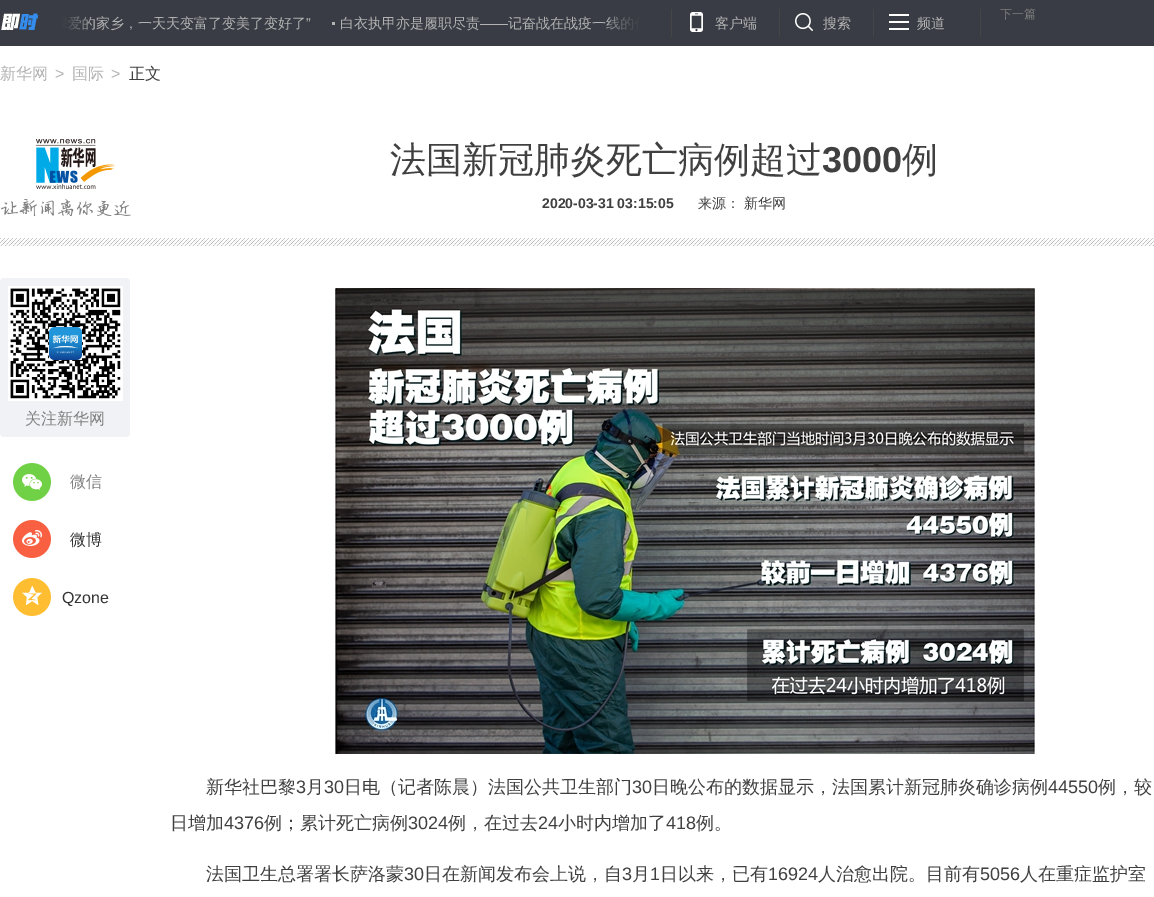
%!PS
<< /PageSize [1154 897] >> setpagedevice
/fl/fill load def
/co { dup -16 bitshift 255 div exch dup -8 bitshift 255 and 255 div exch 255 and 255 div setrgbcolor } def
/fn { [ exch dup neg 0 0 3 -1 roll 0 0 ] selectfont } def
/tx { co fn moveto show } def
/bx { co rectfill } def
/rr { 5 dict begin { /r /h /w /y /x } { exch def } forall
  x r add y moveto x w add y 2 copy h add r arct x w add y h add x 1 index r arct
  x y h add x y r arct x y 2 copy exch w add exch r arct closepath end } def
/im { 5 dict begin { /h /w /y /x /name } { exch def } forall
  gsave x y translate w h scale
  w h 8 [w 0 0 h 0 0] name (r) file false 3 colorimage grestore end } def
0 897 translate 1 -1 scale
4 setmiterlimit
0 0 1154 897 16#FFFFFF bx
0 0 1154 46 16#393C44 bx
(media/1.raw) 1 13 38 17 im
332 22 3 3 16#B3B3B3 bx
671 9 1 28 16#464646 bx
(media/4.raw) 690 12 13 20 im
779 9 1 28 16#464646 bx
(media/5.raw) 795 13 18 18 im
873 9 1 28 16#464646 bx
(media/6.raw) 889 14 20 16 im
980 9 1 28 16#464646 bx
(media/7.raw) 0 238 1154 8 im
(media/8.raw) 1 139 130 77 im
16#F0F2F5 co
0 278 130 159 4 rr fl
(media/9.raw) 8 286 115 115 im
(media/10.raw) 13 463 38 38 im
(media/11.raw) 13 520 38 38 im
(media/12.raw) 13 578 38 38 im
(media/13.raw) 335 288 700 466 im
(爱的家乡，一天天变富了变美了变好了) 68 28 /WenQuanYiZenHei-Medium 14 16#B3B3B3 tx
(media/2.raw) 40 16 54 14 im
(”) 306 28 /LiberationSans-Regular 14 16#B3B3B3 tx
(白衣执甲亦是履职尽责) 340 28 /WenQuanYiZenHei-Medium 14 16#B3B3B3 tx
(——) 480 28 /LiberationSans-Regular 14 16#B3B3B3 tx
(记奋战在战疫一线的) 508 28 /WenQuanYiZenHei-Medium 14 16#B3B3B3 tx
(media/3.raw) 609 16 61 15 im
(客户端) 715 28 /WenQuanYiZenHei-Medium 14 16#B3B3B3 tx
(搜索) 823 28 /WenQuanYiZenHei-Medium 14 16#B3B3B3 tx
(频道) 917 28 /WenQuanYiZenHei-Medium 14 16#B3B3B3 tx
(下一篇) 1000 18 /WenQuanYiZenHei-Medium 12 16#808080 tx
(新华网) 0 79 /WenQuanYiZenHei-Medium 16 16#B3B3B3 tx
(>) 55 79 /LiberationSans-Regular 16 16#B3B3B3 tx
(国际) 72 79 /WenQuanYiZenHei-Medium 16 16#B3B3B3 tx
(>) 111 79 /LiberationSans-Regular 16 16#B3B3B3 tx
(正文) 129 79 /WenQuanYiZenHei-Medium 16 16#404040 tx
(法国新冠肺炎死亡病例超过) 390 172 /WenQuanYiZenHei-Medium 36 16#404040 tx
(3000) 822 172 /LiberationSans-Bold 36 16#404040 tx
(例) 902 172 /WenQuanYiZenHei-Medium 36 16#404040 tx
(2020-03-31 03:15:05) 542 208 /LiberationSans-Bold 14 16#404040 tx
(来源：) 698 208 /WenQuanYiZenHei-Medium 14 16#404040 tx
(新华网) 744 208 /WenQuanYiZenHei-Medium 14 16#404040 tx
(关注新华网) 25 424 /WenQuanYiZenHei-Medium 16 16#808080 tx
(微信) 70 487 /WenQuanYiZenHei-Medium 16 16#808080 tx
(微博) 70 545 /WenQuanYiZenHei-Medium 16 16#333333 tx
(Qzone) 62 603 /LiberationSans-Regular 16 16#333333 tx
(新华社巴黎) 206 793 /WenQuanYiZenHei-Medium 18 16#404040 tx
(3) 296 793 /LiberationSans-Regular 18 16#404040 tx
(月) 306 793 /WenQuanYiZenHei-Medium 18 16#404040 tx
(30) 324 793 /LiberationSans-Regular 18 16#404040 tx
(日电（记者陈晨）法国公共卫生部门) 344 793 /WenQuanYiZenHei-Medium 18 16#404040 tx
(30) 632 793 /LiberationSans-Regular 18 16#404040 tx
(日晚公布的数据显示，法国累计新冠肺炎确诊病例) 652 793 /WenQuanYiZenHei-Medium 18 16#404040 tx
(44550) 1048 793 /LiberationSans-Regular 18 16#404040 tx
(例，较) 1098 793 /WenQuanYiZenHei-Medium 18 16#404040 tx
(日增加) 170 829 /WenQuanYiZenHei-Medium 18 16#404040 tx
(4376) 224 829 /LiberationSans-Regular 18 16#404040 tx
(例；累计死亡病例) 264 829 /WenQuanYiZenHei-Medium 18 16#404040 tx
(3024) 408 829 /LiberationSans-Regular 18 16#404040 tx
(例，在过去) 448 829 /WenQuanYiZenHei-Medium 18 16#404040 tx
(24) 538 829 /LiberationSans-Regular 18 16#404040 tx
(小时内增加了) 558 829 /WenQuanYiZenHei-Medium 18 16#404040 tx
(418) 666 829 /LiberationSans-Regular 18 16#404040 tx
(例。) 696 829 /WenQuanYiZenHei-Medium 18 16#404040 tx
(法国卫生总署署长萨洛蒙) 206 880 /WenQuanYiZenHei-Medium 18 16#404040 tx
(30) 404 880 /LiberationSans-Regular 18 16#404040 tx
(日在新闻发布会上说，自) 424 880 /WenQuanYiZenHei-Medium 18 16#404040 tx
(3) 622 880 /LiberationSans-Regular 18 16#404040 tx
(月) 632 880 /WenQuanYiZenHei-Medium 18 16#404040 tx
(1) 650 880 /LiberationSans-Regular 18 16#404040 tx
(日以来，已有) 660 880 /WenQuanYiZenHei-Medium 18 16#404040 tx
(16924) 768 880 /LiberationSans-Regular 18 16#404040 tx
(人治愈出院。目前有) 818 880 /WenQuanYiZenHei-Medium 18 16#404040 tx
(5056) 980 880 /LiberationSans-Regular 18 16#404040 tx
(人在重症监护室) 1020 880 /WenQuanYiZenHei-Medium 18 16#404040 tx
showpage
